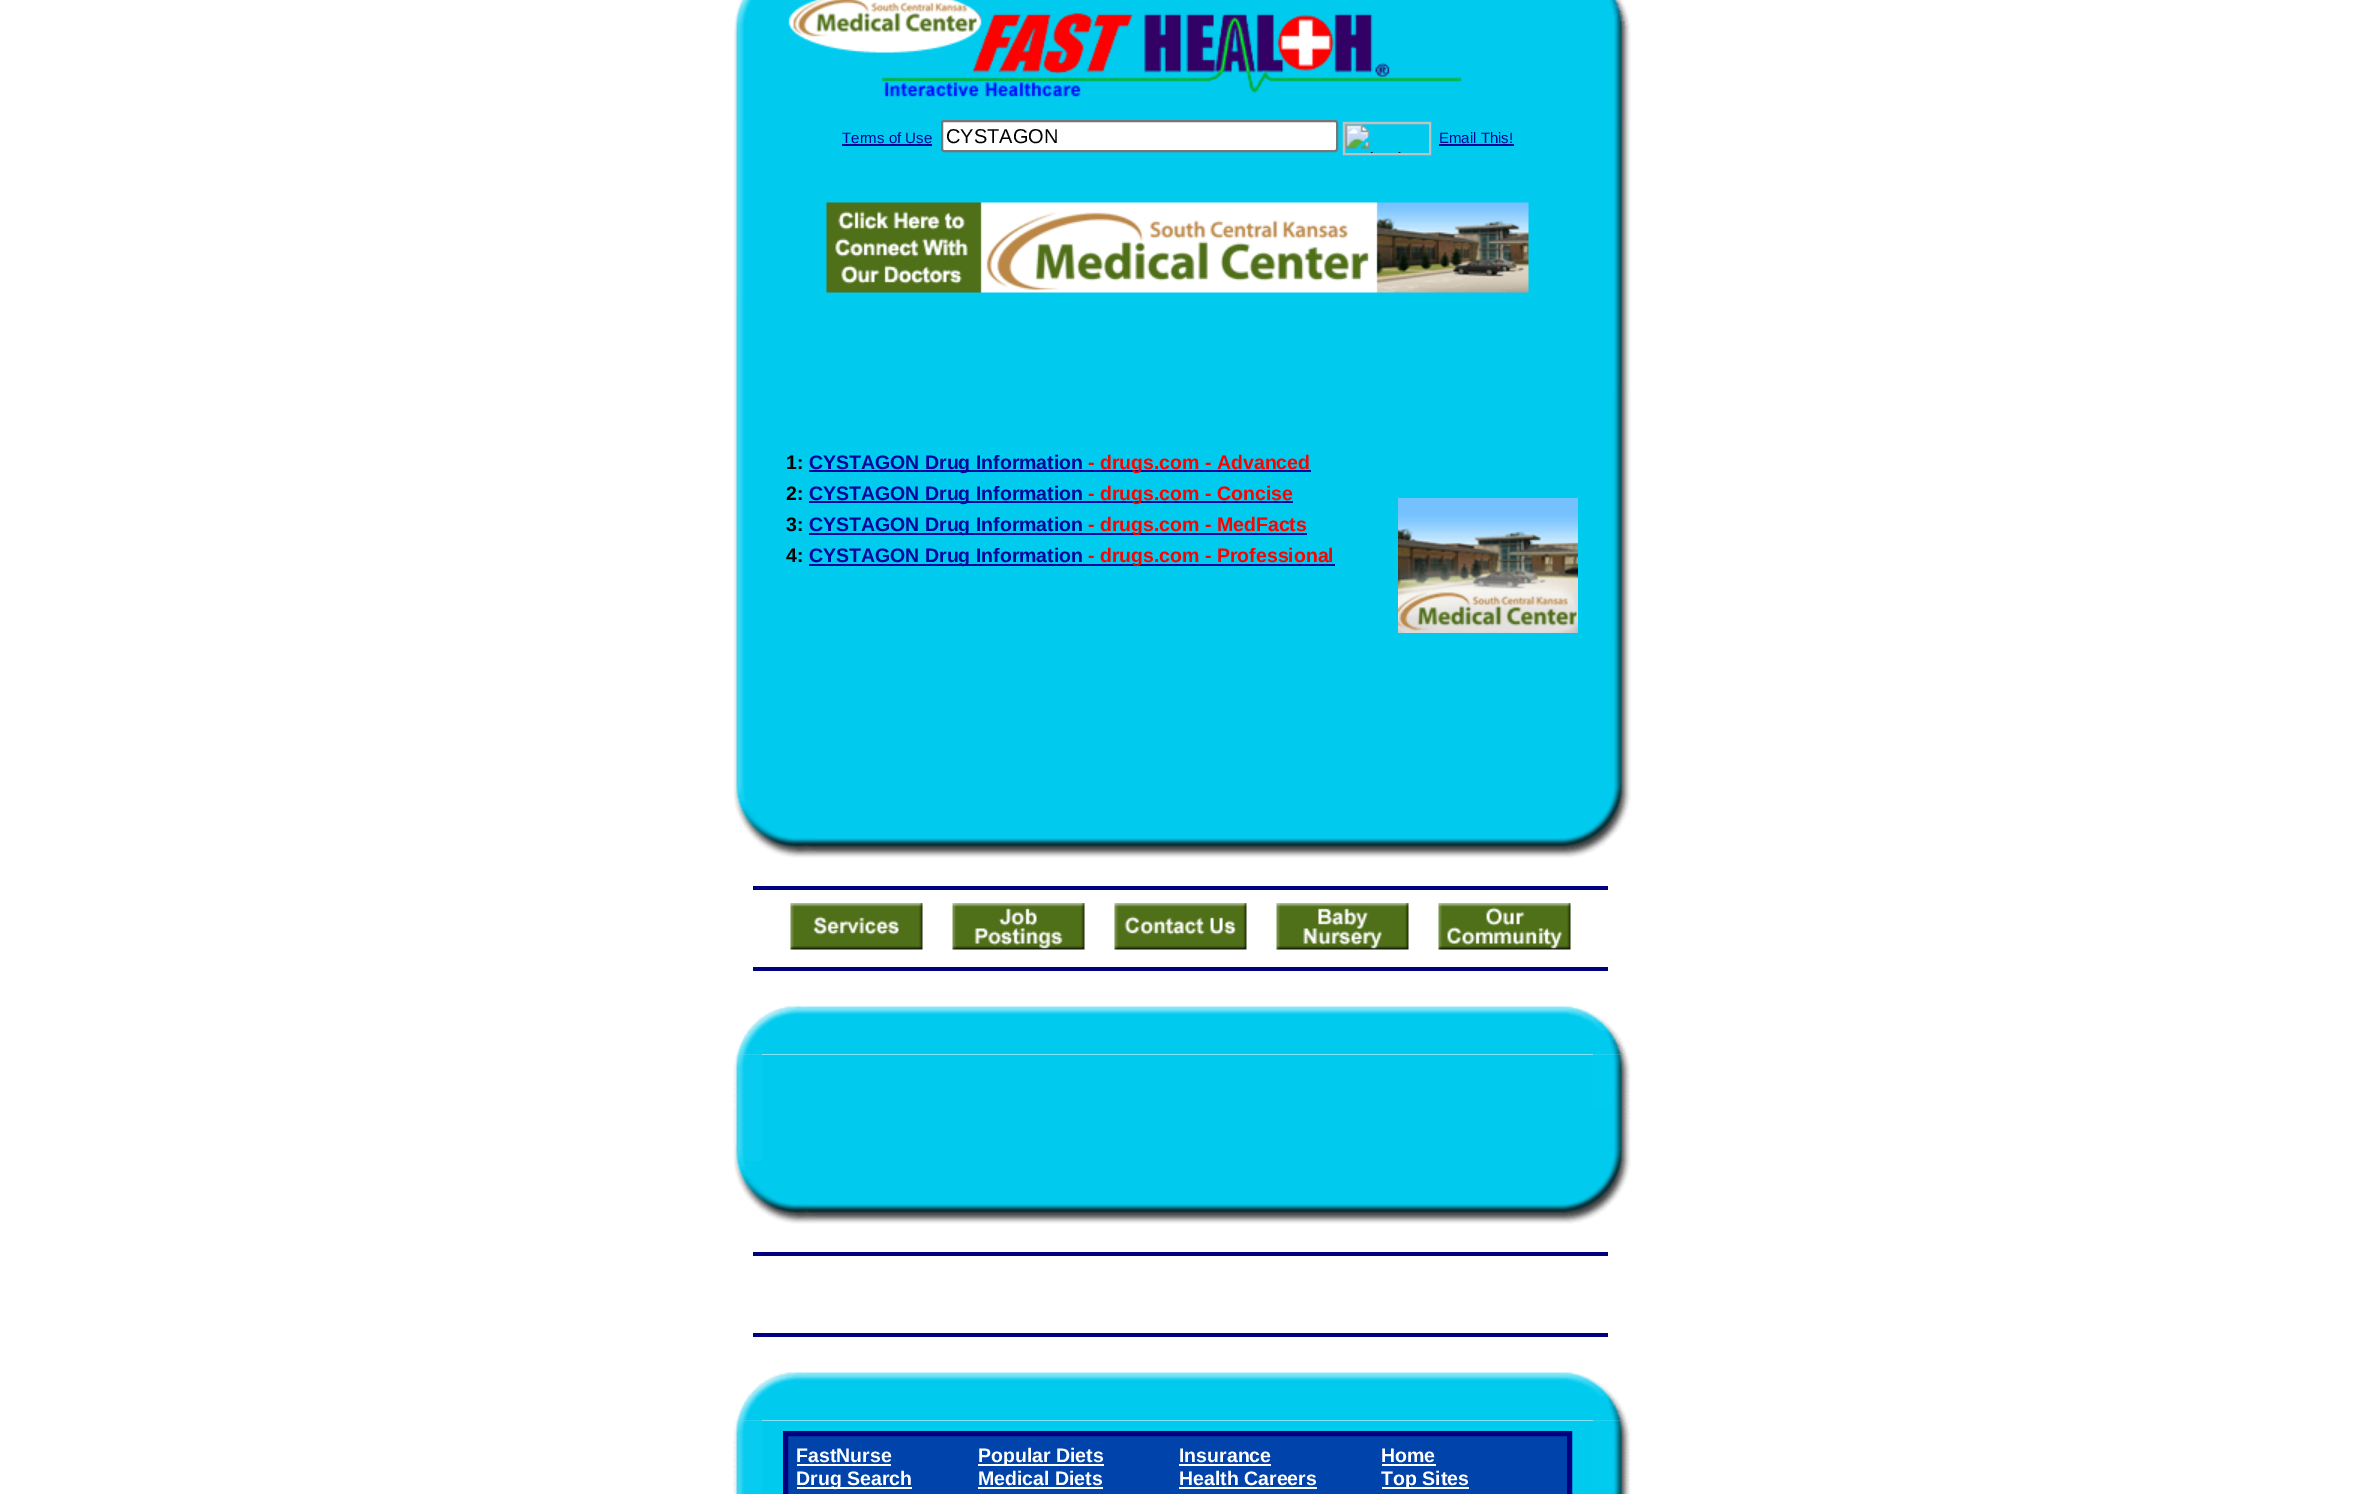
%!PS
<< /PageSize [2361 1494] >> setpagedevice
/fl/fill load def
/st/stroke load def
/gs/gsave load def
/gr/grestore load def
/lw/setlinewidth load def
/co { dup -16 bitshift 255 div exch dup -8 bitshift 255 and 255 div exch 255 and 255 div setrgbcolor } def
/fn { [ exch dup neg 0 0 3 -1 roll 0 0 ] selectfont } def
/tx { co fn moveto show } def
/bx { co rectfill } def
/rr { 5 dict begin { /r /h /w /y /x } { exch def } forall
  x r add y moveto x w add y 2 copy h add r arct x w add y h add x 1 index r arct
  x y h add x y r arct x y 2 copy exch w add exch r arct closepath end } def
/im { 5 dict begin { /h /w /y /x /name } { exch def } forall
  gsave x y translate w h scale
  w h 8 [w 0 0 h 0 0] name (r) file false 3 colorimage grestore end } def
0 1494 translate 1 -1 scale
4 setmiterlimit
0 0 2361 1494 16#FFFFFF bx
(media/1.raw) 734 0 897 120 im
(media/2.raw) 733 120 29 270 im
736 120 1 174 16#9CE0EC bx
762 120 831 675 16#00CBEF bx
842 144 90 2 16#00079D bx
16#FFFFFF co
942 121 395 30 2 rr gs fl gr
16#767676 co
2 lw
st
(media/3.raw) 1342 121 89 34 im
16#C0C0C0 co
1344 123 86 31 rectstroke
1439 144 75 2 16#00079D bx
(media/4.raw) 826 202 703 91 im
809 470 502 2 16#00079D bx
809 501 484 2 16#00079D bx
809 533 498 2 16#00079D bx
809 564 526 2 16#00079D bx
(media/5.raw) 1398 498 180 135 im
(media/6.raw) 1593 120 38 270 im
(media/7.raw) 733 390 29 405 im
(media/8.raw) 736 534 6 261 im
(media/9.raw) 1593 390 38 405 im
(media/10.raw) 1613 641 9 154 im
(media/11.raw) 734 795 897 63 im
753 886 855 4 16#000080 bx
(media/12.raw) 790 903 133 47 im
(media/13.raw) 952 903 133 47 im
(media/14.raw) 1114 903 133 47 im
(media/15.raw) 1276 903 133 47 im
(media/16.raw) 1438 903 133 47 im
753 967 855 4 16#000080 bx
(media/18.raw) 733 1054 29 1 im
(media/20.raw) 1593 1054 38 1 im
(media/17.raw) 735 1006 894 49 im
(media/19.raw) 733 1054 29 53 im
762 1055 831 106 16#00CBEF bx
(media/21.raw) 1593 1054 38 53 im
(media/22.raw) 733 1107 1 54 im
(media/23.raw) 734 1107 28 54 im
(media/24.raw) 1593 1107 38 54 im
(media/25.raw) 1613 1107 16 54 im
(media/11.raw) 734 1161 897 63 im
753 1252 855 4 16#000080 bx
753 1333 855 4 16#000080 bx
(media/18.raw) 733 1420 29 1 im
(media/20.raw) 1593 1420 38 1 im
(media/17.raw) 735 1372 894 49 im
(media/26.raw) 733 1420 29 68 im
762 1421 831 73 16#00CBEF bx
788 1436 779 58 16#0043AA bx
16#000080 co
3 lw
784.5 1432.5 786 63 rectstroke
2 lw
787 1435 781 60 rectstroke
797 1464 94 2 16#FFFFFF bx
797 1487 115 2 16#FFFFFF bx
978 1464 126 2 16#FFFFFF bx
978 1487 125 2 16#FFFFFF bx
1179 1464 92 2 16#FFFFFF bx
1179 1487 138 2 16#FFFFFF bx
1382 1464 54 2 16#FFFFFF bx
1382 1487 87 2 16#FFFFFF bx
(media/27.raw) 1593 1420 38 68 im
(media/28.raw) 733 1488 1 6 im
(media/29.raw) 734 1488 28 6 im
(media/30.raw) 1593 1488 38 6 im
(media/31.raw) 1625 1488 4 3 im
(Terms of Use) 842 143 /LiberationSans-Regular 15 16#00079D tx
(CYSTAGON) 946 143 /LiberationSans-Regular 20 16#000000 tx
(Email This!) 1439 143 /LiberationSans-Regular 15 16#00079D tx
(1:) 786 469 /LiberationSans-Bold 19.5 16#000000 tx
(CYSTAGON Drug Information) 809 469 /LiberationSans-Bold 19.5 16#00079D tx
(- drugs.com - Advanced) 1088 469 /LiberationSans-Bold 19.5 16#FF0000 tx
(2:) 786 500 /LiberationSans-Bold 19.5 16#000000 tx
(CYSTAGON Drug Information) 809 500 /LiberationSans-Bold 19.5 16#00079D tx
(- drugs.com - Concise) 1088 500 /LiberationSans-Bold 19.5 16#FF0000 tx
(3:) 786 531 /LiberationSans-Bold 19.5 16#000000 tx
(CYSTAGON Drug Information) 809 531 /LiberationSans-Bold 19.5 16#00079D tx
(- drugs.com - MedFacts) 1088 531 /LiberationSans-Bold 19.5 16#FF0000 tx
(4:) 786 562 /LiberationSans-Bold 19.5 16#000000 tx
(CYSTAGON Drug Information) 809 562 /LiberationSans-Bold 19.5 16#00079D tx
(- drugs.com - Professional) 1088 562 /LiberationSans-Bold 19.5 16#FF0000 tx
(FastNurse) 796 1462 /LiberationSans-Bold 19.5 16#FFFFFF tx
(Drug Search) 796 1485 /LiberationSans-Bold 19.5 16#FFFFFF tx
(Popular Diets) 978 1462 /LiberationSans-Bold 19.5 16#FFFFFF tx
(Medical Diets) 978 1485 /LiberationSans-Bold 19.5 16#FFFFFF tx
(Insurance) 1179 1462 /LiberationSans-Bold 19.5 16#FFFFFF tx
(Health Careers) 1179 1485 /LiberationSans-Bold 19.5 16#FFFFFF tx
(Home) 1381 1462 /LiberationSans-Bold 19.5 16#FFFFFF tx
(Top Sites) 1381 1485 /LiberationSans-Bold 19.5 16#FFFFFF tx
showpage
